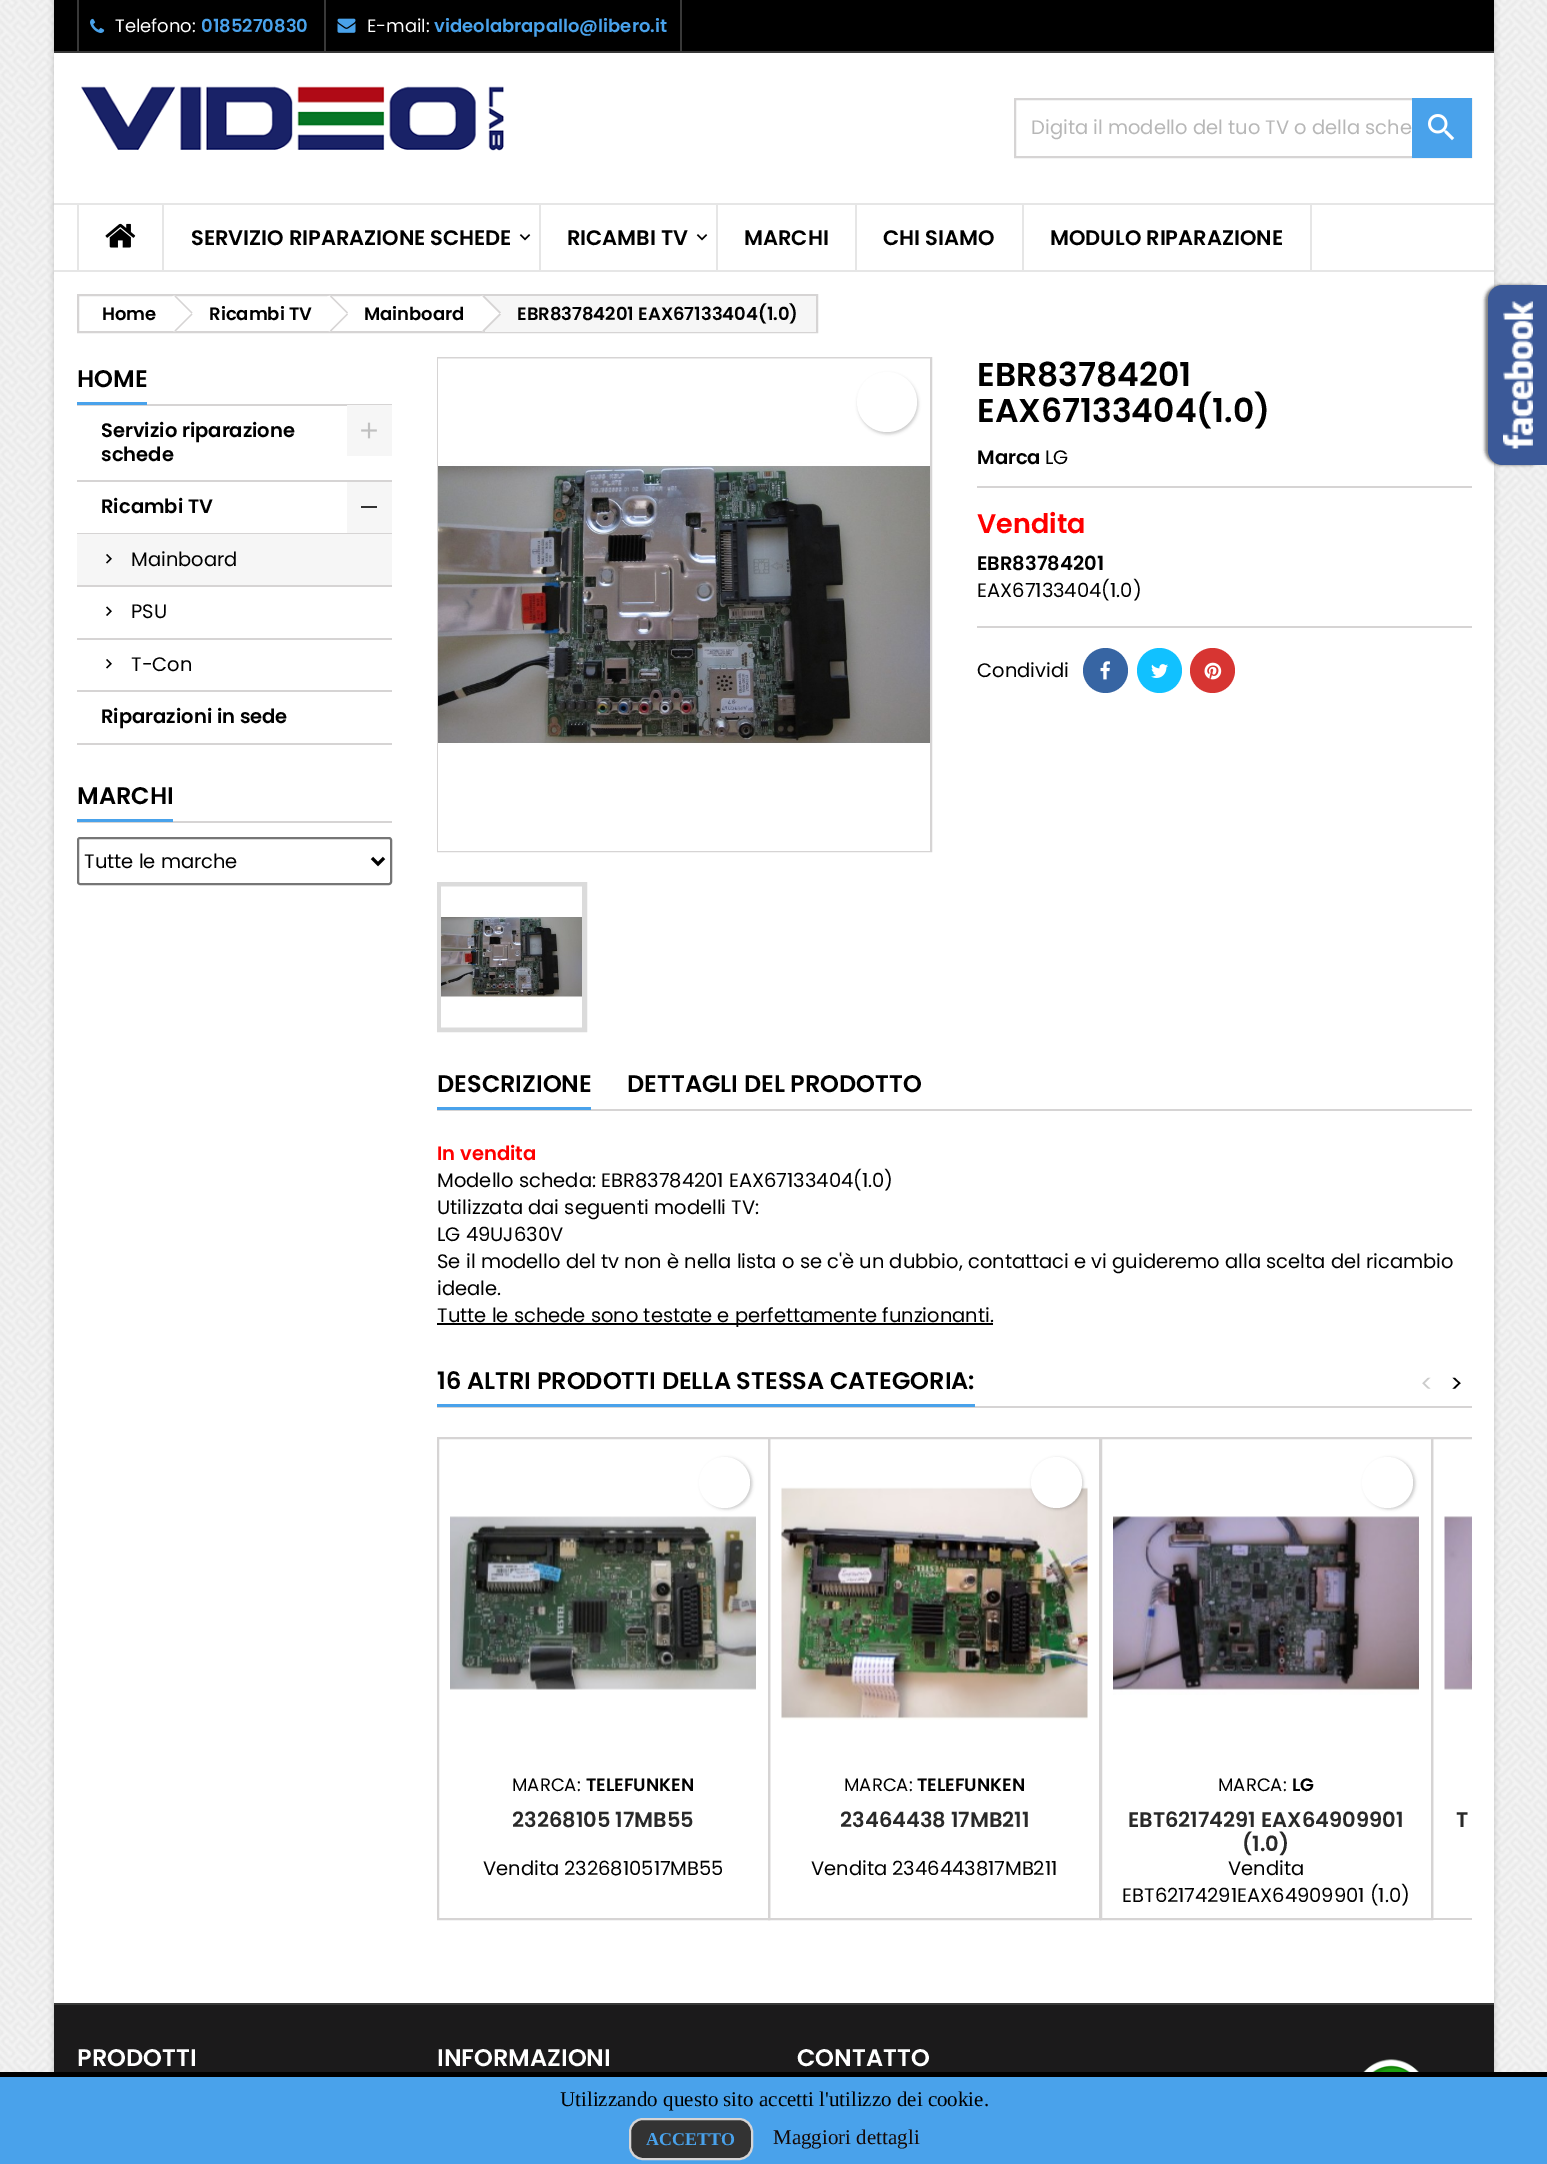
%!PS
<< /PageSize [1547 2164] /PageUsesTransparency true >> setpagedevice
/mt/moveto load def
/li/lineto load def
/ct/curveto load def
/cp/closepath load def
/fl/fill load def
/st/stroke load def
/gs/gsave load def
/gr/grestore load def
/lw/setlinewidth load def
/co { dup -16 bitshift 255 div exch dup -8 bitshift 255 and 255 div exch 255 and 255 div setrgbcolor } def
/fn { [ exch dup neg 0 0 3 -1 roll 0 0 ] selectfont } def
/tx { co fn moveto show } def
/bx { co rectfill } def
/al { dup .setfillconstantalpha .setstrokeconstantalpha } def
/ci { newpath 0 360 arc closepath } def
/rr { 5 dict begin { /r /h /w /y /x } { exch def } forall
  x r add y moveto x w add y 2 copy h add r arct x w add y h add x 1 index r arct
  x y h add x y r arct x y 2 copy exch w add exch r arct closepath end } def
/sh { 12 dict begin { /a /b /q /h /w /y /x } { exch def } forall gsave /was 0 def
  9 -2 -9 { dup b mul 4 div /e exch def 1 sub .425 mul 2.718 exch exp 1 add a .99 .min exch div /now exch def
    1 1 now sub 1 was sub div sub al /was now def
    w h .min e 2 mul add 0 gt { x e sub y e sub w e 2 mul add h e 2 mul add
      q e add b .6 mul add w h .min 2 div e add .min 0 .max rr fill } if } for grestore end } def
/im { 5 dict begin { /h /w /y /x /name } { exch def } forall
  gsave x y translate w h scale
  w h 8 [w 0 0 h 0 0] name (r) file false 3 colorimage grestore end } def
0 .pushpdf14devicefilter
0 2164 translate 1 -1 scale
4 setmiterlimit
0 0 1547 2164 16#FFFFFF bx
(media/1.raw) 0 0 1547 2072 im
16#000000 co
54 0 1440 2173 0 3 .2 sh
54 53 1440 1950 16#FFFFFF bx
54 0 1440 51 16#000000 bx
54 51 1440 2 16#383838 bx
77 0 2 51 16#383838 bx
(media/2.raw) 90 18 15 15 im
680 0 2 51 16#383838 bx
324 0 2 51 16#383838 bx
(media/3.raw) 337 18 19 15 im
(media/4.raw) 81 86 423 65 im
16#D6D4D4 co
2 lw
1015 99 456 58 rectstroke
1412 98 60 60 16#49A2EB bx
(media/5.raw) 1428 114 27 27 im
54 203 1440 2 16#E6E6E6 bx
54 270 1440 2 16#E6E6E6 bx
77 204 2 66 16#E6E6E6 bx
(media/6.raw) 105 223 31 25 im
162 204 2 66 16#E6E6E6 bx
(media/7.raw) 519 234 12 7 im
539 204 2 66 16#E6E6E6 bx
(media/7.raw) 696 234 12 7 im
716 204 2 66 16#E6E6E6 bx
855 204 2 66 16#E6E6E6 bx
1310 204 2 66 16#E6E6E6 bx
1022 204 2 66 16#E6E6E6 bx
16#D6D4D4 co
78 295 739 37 rectstroke
16#FFFFFF co
176.5 296.5 mt 191.5 311.5 li 192.5 312.5 192.5 314.5 191.5 315.5 ct 176.5 330.5 li 175.5 331.5 173.5 331.5 172.5 330.5 ct 157.5 315.5 li 156 314.5 156 312.5 157.5 311.5 ct 172.5 296.5 li 173.5 295.5 175.5 295.5 176.5 296.5 ct cp fl
16#D6D4D4 co
175.5 295.5 mt 192.5 312.5 li 191.5 313.5 li 174.5 296.5 li cp fl
191.5 313.5 mt 192.5 314.5 li 175.5 331.5 li 174.5 330.5 li cp fl
485 296 331 36 16#F6F6F6 bx
16#FFFFFF co
485 296.5 mt 499.5 311.5 li 501 312.5 501 314.5 499.5 315.5 ct 485 330.5 li 483.5 331.5 482 331.5 480.5 330.5 ct 466 315.5 li 464.5 314.5 464.5 312.5 466 311.5 ct 480.5 296.5 li 482 295.5 483.5 295.5 485 296.5 ct cp fl
16#D6D4D4 co
484 295.5 mt 501 312.5 li 499.5 313.5 li 482.5 296.5 li cp fl
499.5 313.5 mt 501 314.5 li 484 331.5 li 482.5 330.5 li cp fl
77 404 315 2 16#D6D4D4 bx
77 402 70 3 16#49A2EB bx
77 480 315 2 16#D6D4D4 bx
347 405 45 51 16#F6F6F6 bx
(media/8.raw) 361 422 16 17 im
77 533 315 1 16#D6D4D4 bx
347 482 45 51 16#F6F6F6 bx
361 506 16 2 16#333333 bx
77 534 315 51 16#F6F6F6 bx
77 585 315 2 16#D6D4D4 bx
(media/9.raw) 106 554 6 10 im
77 638 315 2 16#D6D4D4 bx
(media/10.raw) 106 606 6 10 im
77 690 315 2 16#D6D4D4 bx
(media/11.raw) 106 659 6 10 im
77 743 315 2 16#D6D4D4 bx
77 821 315 2 16#D6D4D4 bx
77 819 96 3 16#49A2EB bx
16#767676 co
78 838 313 46 2 rr st
16#000000 co
3 lw
372 858 mt 378 864 li 384 858 li st
16#D6D4D4 co
2 lw
438 358 493 493 rectstroke
(media/12.raw) 438 358 492 387 im
438 745 492 106 16#FFFFFF bx
16#DBDBDB co
5 lw
439.5 884.5 145 145 rectstroke
(media/13.raw) 441 886 141 142 im
16#000000 co
858 374 60 60 30 1.5 .2 sh
16#FFFFFF co
887 402 30 ci fl
977 486 495 2 16#D6D4D4 bx
977 626 495 2 16#D6D4D4 bx
16#3765A3 co
1105.5 670.5 22.5 ci fl
(media/14.raw) 1100 661 10 19 im
16#11C1FF co
1159.5 670.5 22.5 ci fl
(media/15.raw) 1151 664 17 14 im
16#D73532 co
1212.5 670.5 22.5 ci fl
(media/16.raw) 1204 662 18 18 im
437 1109 1035 2 16#D6D4D4 bx
437 1107 154 3 16#49A2EB bx
437 1323 556 2 16#000000 bx
437 1406 1035 2 16#D6D4D4 bx
437 1404 538 3 16#49A2EB bx
16#D6D4D4 co
2 lw
438 1438 331 481 rectstroke
16#000000 co
701 1458 51 51 25.5 1.5 .2 sh
16#FFFFFF co
724.5 1482.5 25.5 ci fl
(media/17.raw) 450 1516 306 174 im
16#D6D4D4 co
769 1438 331 481 rectstroke
(media/18.raw) 781 1487 307 233 im
16#000000 co
1032 1458 51 51 25.5 1.5 .2 sh
16#FFFFFF co
1056.5 1482.5 25.5 ci fl
16#D6D4D4 co
1101 1438 331 481 rectstroke
16#000000 co
1364 1458 51 51 25.5 1.5 .2 sh
16#FFFFFF co
1387.5 1482.5 25.5 ci fl
(media/19.raw) 1113 1516 306 179 im
gs
437 1437 1035 483 rectclip
16#D6D4D4 co
1432 1438 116 481 rectstroke
gr
(media/20.raw) 1444 1516 28 174 im
16#000000 co
1485 285 60 180 15 1.5 .5 sh
16#3B5998 co
1503 285 mt 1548 285 li 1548 465 li 1503 465 li 1494.5 465 1488 458.5 1488 450 ct 1488 300 li 1488 291.5 1494.5 285 1503 285 ct cp fl
(media/21.raw) 1503 301 30 148 im
54 2005 1440 67 16#1B1A1B bx
54 2003 1440 2 16#383838 bx
(media/22.raw) 1363 2059 56 13 im
0 2077 1547 87 16#49A2EB bx
0 2072 1547 5 16#000000 bx
16#333333 co
630 2119 122 40 13 rr gs fl gr
16#D6D4D4 co
st
(Telefono:) 115 32 /Poppins-Regular 18 16#FFFFFF tx
(0185270830) 201 32 /Poppins-SemiBold 18 16#49A2EB tx
(E-mail:) 367 32 /Poppins-Regular 18 16#FFFFFF tx
(videolabrapallo@libero.it) 434 32 /Poppins-SemiBold 18 16#49A2EB tx
(Digita il modello del tuo TV o della sche) 1031 134 /Poppins-Regular 19.5 16#B7B7B7 tx
(SERVIZIO RIPARAZIONE SCHEDE) 191 245 /Poppins-SemiBold 21 16#000000 tx
(RICAMBI TV) 567 245 /Poppins-SemiBold 21 16#000000 tx
(MARCHI) 744 245 /Poppins-SemiBold 21 16#000000 tx
(CHI SIAMO) 883 245 /Poppins-SemiBold 21 16#000000 tx
(MODULO RIPARAZIONE) 1050 245 /Poppins-SemiBold 21 16#000000 tx
(Home) 102 320 /Poppins-SemiBold 18 16#000000 tx
(Ricambi TV) 209 320 /Poppins-SemiBold 18 16#000000 tx
16#FFFFFF co
332 296.5 mt 347 311.5 li 348 312.5 348 314.5 347 315.5 ct 332 330.5 li 330.5 331.5 329 331.5 327.5 330.5 ct 313 315.5 li 311.5 314.5 311.5 312.5 313 311.5 ct 327.5 296.5 li 329 295.5 330.5 295.5 332 296.5 ct cp fl
16#D6D4D4 co
331 295.5 mt 348 312.5 li 347 313.5 li 330 296.5 li cp fl
347 313.5 mt 348 314.5 li 331 331.5 li 330 330.5 li cp fl
(Mainboard) 364 320 /Poppins-SemiBold 18 16#000000 tx
(EBR83784201 EAX67133404\(1.0\)) 517 320 /Poppins-SemiBold 18 16#000000 tx
(HOME) 77 387 /Poppins-SemiBold 24 16#000000 tx
(Servizio riparazione) 101 437 /Poppins-SemiBold 19.5 16#000000 tx
(schede) 101 461 /Poppins-SemiBold 19.5 16#000000 tx
(Ricambi TV) 101 513 /Poppins-SemiBold 19.5 16#000000 tx
(Mainboard) 131 566 /Poppins-Regular 19.5 16#000000 tx
(PSU) 131 618 /Poppins-Regular 19.5 16#000000 tx
(T-Con) 131 671 /Poppins-Regular 19.5 16#000000 tx
(Riparazioni in sede) 101 723 /Poppins-SemiBold 19.5 16#000000 tx
(MARCHI) 77 804 /Poppins-SemiBold 24 16#000000 tx
(Tutte le marche) 84 868 /Poppins-Regular 19.5 16#000000 tx
(EBR83784201) 977 386 /Poppins-SemiBold 33 16#000000 tx
(EAX67133404\(1.0\)) 977 422 /Poppins-SemiBold 33 16#000000 tx
(Marca) 977 464 /Poppins-SemiBold 19.5 16#000000 tx
(LG) 1045 464 /Poppins-Regular 19.5 16#000000 tx
(Vendita) 977 533 /Poppins-SemiBold 27 16#FF0000 tx
(EBR83784201) 977 570 /Poppins-SemiBold 19.5 16#000000 tx
(EAX67133404\(1.0\)) 977 597 /Poppins-Regular 19.5 16#000000 tx
(Condividi) 977 677 /Poppins-Regular 19.5 16#000000 tx
(DESCRIZIONE) 437 1092 /Poppins-SemiBold 24 16#000000 tx
(DETTAGLI DEL PRODOTTO) 627 1092 /Poppins-SemiBold 24 16#000000 tx
(In vendita) 437 1160 /Poppins-SemiBold 19.5 16#FF0000 tx
(Modello scheda: EBR83784201 EAX67133404\(1.0\)) 437 1187 /Poppins-Regular 19.5 16#000000 tx
(Utilizzata dai seguenti modelli TV:) 437 1214 /Poppins-Regular 19.5 16#000000 tx
(LG 49UJ630V) 437 1241 /Poppins-Regular 19.5 16#000000 tx
(Se il modello del tv non è nella lista o se c'è un dubbio, contattaci e vi guideremo alla scelta del ricambio) 437 1268 /Poppins-Regular 19.5 16#000000 tx
(ideale.) 437 1295 /Poppins-Regular 19.5 16#000000 tx
(Tutte le schede sono testate e perfettamente funzionanti.) 437 1322 /Poppins-Regular 19.5 16#000000 tx
(16 ALTRI PRODOTTI DELLA STESSA CATEGORIA:) 437 1389 /Poppins-SemiBold 24 16#000000 tx
(<) 1420 1392 /Poppins-Regular 24 16#CCCCCC tx
(>) 1450 1392 /Poppins-Regular 24 16#000000 tx
(MARCA:) 512 1791 /Poppins-Regular 18 16#000000 tx
(TELEFUNKEN) 586 1791 /Poppins-SemiBold 18 16#000000 tx
(23268105 17MB55) 512 1827 /Poppins-SemiBold 21 16#292929 tx
(Vendita 2326810517MB55) 483 1875 /Poppins-Regular 19.5 16#000000 tx
(MARCA:) 844 1791 /Poppins-Regular 18 16#000000 tx
(TELEFUNKEN) 917 1791 /Poppins-SemiBold 18 16#000000 tx
(23464438 17MB211) 840 1827 /Poppins-SemiBold 21 16#292929 tx
(Vendita 2346443817MB211) 811 1875 /Poppins-Regular 19.5 16#000000 tx
(MARCA:) 1218 1791 /Poppins-Regular 18 16#000000 tx
(LG) 1292 1791 /Poppins-SemiBold 18 16#000000 tx
(EBT62174291 EAX64909901) 1128 1827 /Poppins-SemiBold 21 16#292929 tx
(\(1.0\)) 1242 1851 /Poppins-SemiBold 21 16#292929 tx
(Vendita) 1228 1875 /Poppins-Regular 19.5 16#000000 tx
(EBT62174291EAX64909901 \(1.0\)) 1122 1902 /Poppins-Regular 19.5 16#000000 tx
(T) 1456 1827 /Poppins-SemiBold 21 16#292929 tx
(PRODOTTI) 77 2066 /Poppins-SemiBold 24 16#FFFFFF tx
(INFORMAZIONI) 437 2066 /Poppins-SemiBold 24 16#FFFFFF tx
(CONTATTO) 797 2066 /Poppins-SemiBold 24 16#FFFFFF tx
(Utilizzando questo sito accetti l'utilizzo dei cookie.) 560 2106 /LiberationSerif-Regular 21 16#000000 tx
(ACCETTO) 646 2145 /LiberationSerif-Bold 18 16#49A2EB tx
(Maggiori dettagli) 773 2144 /LiberationSerif-Regular 21 16#140805 tx
.poppdf14devicefilter showpage
